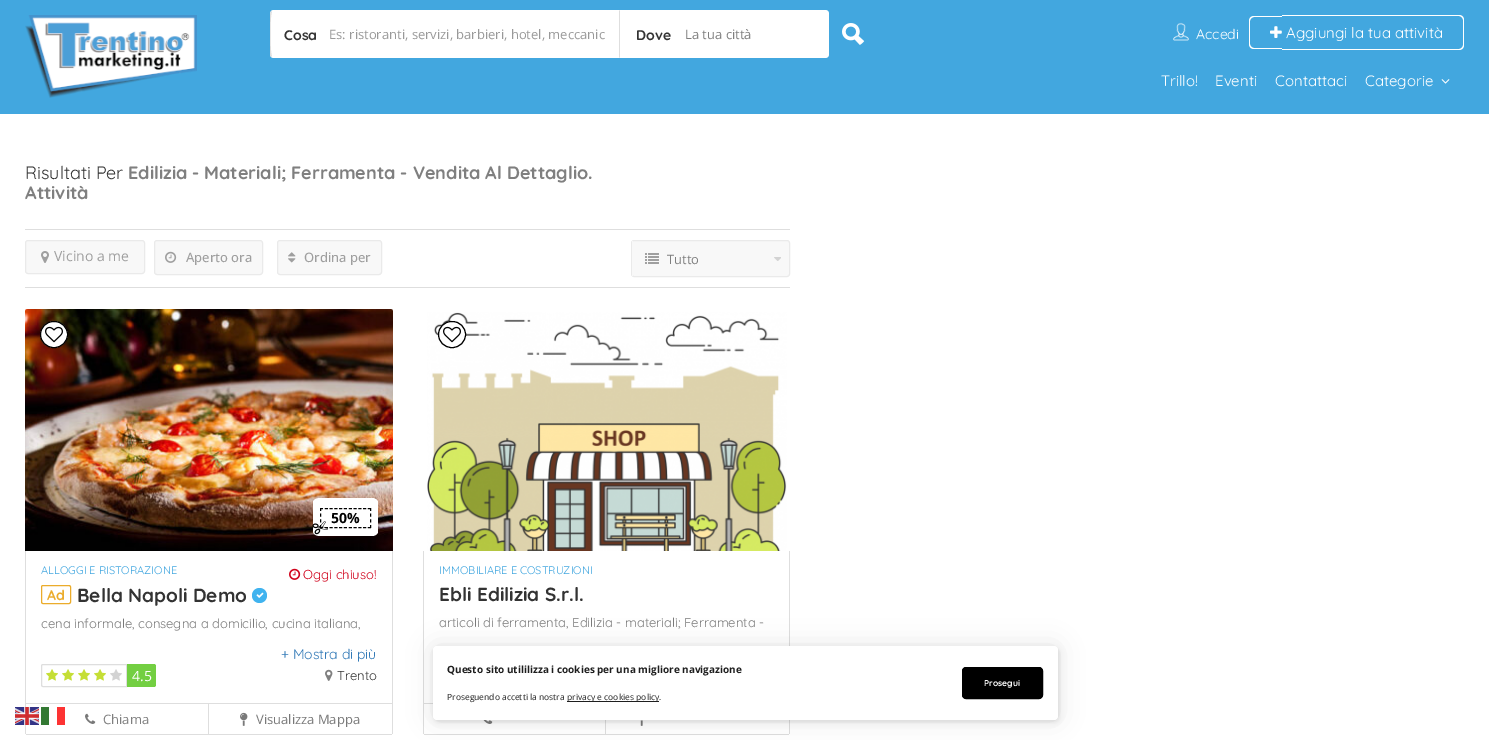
%!PS
<< /PageSize [1489 740] /PageUsesTransparency true >> setpagedevice
/mt/moveto load def
/li/lineto load def
/ct/curveto load def
/cp/closepath load def
/fl/fill load def
/st/stroke load def
/gs/gsave load def
/gr/grestore load def
/co { dup -16 bitshift 255 div exch dup -8 bitshift 255 and 255 div exch 255 and 255 div setrgbcolor } def
/fn { [ exch dup neg 0 0 3 -1 roll 0 0 ] selectfont } def
/tx { co fn moveto show } def
/bx { co rectfill } def
/al { dup .setfillconstantalpha .setstrokeconstantalpha } def
/ci { newpath 0 360 arc closepath } def
/rr { 5 dict begin { /r /h /w /y /x } { exch def } forall
  x r add y moveto x w add y 2 copy h add r arct x w add y h add x 1 index r arct
  x y h add x y r arct x y 2 copy exch w add exch r arct closepath end } def
/sh { 12 dict begin { /a /b /q /h /w /y /x } { exch def } forall gsave /was 0 def
  9 -2 -9 { dup b mul 4 div /e exch def 1 sub .425 mul 2.718 exch exp 1 add a .99 .min exch div /now exch def
    1 1 now sub 1 was sub div sub al /was now def
    w h .min e 2 mul add 0 gt { x e sub y e sub w e 2 mul add h e 2 mul add
      q e add b .6 mul add w h .min 2 div e add .min 0 .max rr fill } if } for grestore end } def
/im { 5 dict begin { /h /w /y /x /name } { exch def } forall
  gsave x y translate w h scale
  w h 8 [w 0 0 h 0 0] name (r) file false 3 colorimage grestore end } def
0 .pushpdf14devicefilter
0 740 translate 1 -1 scale
4 setmiterlimit
0 0 1489 740 16#FFFFFF bx
0 0 1489 114 16#42A7DF bx
(media/1.raw) 25 15 172 83 im
16#FFFFFF co
274 10 mt 619 10 li 619 58 li 274 58 li 272 58 270 56 270 54 ct 270 14 li 270 12 272 10 274 10 ct cp fl
274 10 mt 271 11 li 272 12 li 274 11 li 618 11 li 619 10 li cp fl
619 58 mt 618 57 li 274 57 li 272 56 li 271 57 li 274 58 li cp fl
16#DEDEDE co
270 14 mt 270 54 li 270 55 270 56 271 57 ct 272 56 li 270 55 270 13 272 12 ct 271 11 li cp fl
16#FFFFFF co
619 10 mt 825 10 li 827 10 829 12 829 14 ct 829 54 li 829 56 827 58 825 58 ct 619 58 li cp fl
619 10 mt 620 11 li 825 11 li 827 12 li 828 11 li 825 10 li cp fl
829 54 mt 829 14 li 829 13 828 12 828 11 ct 827 12 li 829 13 829 55 827 56 ct 828 57 li cp fl
825 58 mt 828 57 li 827 56 li 825 57 li 620 57 li 619 58 li cp fl
16#DEDEDE co
619 10 mt 619 58 li 620 57 li 620 11 li cp fl
(media/2.raw) 842 23 23 22 im
(media/3.raw) 1173 22 16 19 im
16#FFFFFF co
1254 16 mt 1282 16 li 1282 49 li 1254 49 li 1251 49 1249 47 1249 44 ct 1249 21 li 1249 18 1251 16 1254 16 ct cp 1254 17 mt 1282 17 li 1282 48 li 1254 48 li 1252 48 1250 46 1250 44 ct 1250 21 li 1250 19 1252 17 1254 17 ct cp eofill
1282 15 mt 1459 15 li 1462 15 1464 17 1464 20 ct 1464 45 li 1464 48 1462 50 1459 50 ct 1282 50 li cp 1282 16 mt 1459 16 li 1461 16 1463 18 1463 20 ct 1463 45 li 1463 47 1461 49 1459 49 ct 1282 49 li cp eofill
(media/4.raw) 1270 26 12 12 im
(media/5.raw) 1441 79 9 5 im
25 229 765 1 16#DEDEDE bx
25 287 765 1 16#DEDEDE bx
16#F8F8F8 co
25.5 240.5 119 33 2.5 rr gs fl gr
16#EAEAEA co
st
(media/6.raw) 41 251 8 12 im
16#F8F8F8 co
154.5 240.5 108 34 2.5 rr gs fl gr
16#EAEAEA co
st
(media/7.raw) 165 251 12 12 im
16#F8F8F8 co
277.5 240.5 104 34 2.5 rr gs fl gr
16#EAEAEA co
st
(media/8.raw) 288 252 8 11 im
16#F8F8F8 co
631.5 240.5 158 36 2.5 rr gs fl gr
16#EAEAEA co
st
632 241 1 35 16#F8F8F8 bx
(media/9.raw) 645 253 14 11 im
(media/10.raw) 774 257 7 4 im
(media/11.raw) 25 309 368 242 im
16#FFFFFF co
40.5 321.5 27 26 13 rr gs fl gr
16#000000 co
st
(media/12.raw) 45 326 18 17 im
16#FFFFFF co
320 498 mt 372 498 li 375 498 378 500 378 502 ct 378 532 li 378 534 375 536 372 536 ct 320 536 li 316 536 313 534 313 532 ct 313 502 li 313 500 316 498 320 498 ct cp fl
16#000000 co
[3 1.8] 0 setdash
320 508.5 mt 371 508.5 li st
[3 2.67] 0 setdash
370.5 508 mt 370.5 528 li st
(media/13.raw) 312 521 16 14 im
[3 1.8] 0 setdash
320 527.5 mt 371 527.5 li st
[3 2.67] 0 setdash
320.5 508 mt 320.5 528 li st
392 551 1 183 16#DEDEDE bx
25 703 368 1 16#DEDEDE bx
25 551 1 183 16#DEDEDE bx
(media/14.raw) 289 568 12 12 im
16#EBAC2C co
[] 0 setdash
41.5 585.5 29 18 1.5 rr st
16#40B3EF co
259.5 595.5 7.5 ci fl
(media/15.raw) 256 592 8 6 im
16#DEDEDE co
43 664.5 mt 126.5 664.5 li 126.5 686.5 li 43 686.5 li 42 686.5 41.5 686 41.5 685 ct 41.5 666 li 41.5 665 42 664.5 43 664.5 ct cp st
(media/16.raw) 46 669 12 12 im
(media/16.raw) 62 669 12 12 im
(media/16.raw) 78 669 12 12 im
(media/16.raw) 94 669 12 12 im
(media/17.raw) 110 669 12 12 im
16#73CF42 co
127 664 mt 154 664 li 155 664 156 665 156 666 ct 156 685 li 156 686 155 687 154 687 ct 127 687 li cp fl
(media/18.raw) 325 669 8 12 im
26 734 366 1 16#DEDEDE bx
208 704 1 30 16#DEDEDE bx
(media/19.raw) 85 713 11 11 im
(media/20.raw) 240 712 8 14 im
(media/21.raw) 427 312 360 239 im
16#FFFFFF co
438.5 321.5 27 26 13 rr gs fl gr
16#000000 co
st
(media/12.raw) 443 326 18 17 im
789 551 1 95 16#DEDEDE bx
423 703 10 1 16#DEDEDE bx
423 551 1 183 16#DEDEDE bx
789 720 1 14 16#DEDEDE bx
424 734 365 1 16#DEDEDE bx
605 720 1 14 16#DEDEDE bx
(media/22.raw) 483 720 10 4 im
(media/23.raw) 640 720 3 6 im
(media/24.raw) 15 707 24 18 im
41 707 8 18 16#337933 bx
57 707 8 18 16#FD3333 bx
16#000000 co
434 648 625 74 4 2.5 .1 sh
433 646 625 74 4 12.5 .1 sh
16#FFFFFF co
433 646 625 74 4 rr fl
567 701 92 1 16#1E1E1E bx
16#000000 co
962.5 667.5 80 31 3.5 rr gs fl gr
st
(Cosa) 284 40 /Quicksand-Bold 14 16#333333 tx
(Es: ristoranti, servizi, barbieri, hotel, meccanic) 329 39 /OpenSans-Regular 13 16#999999 tx
(Dove) 636 40 /Quicksand-Bold 14 16#333333 tx
(La tua città) 685 39 /OpenSans-Regular 13 16#7F7F7F tx
(Accedi) 1196 39 /Quicksand-Regular 14 16#FFFFFF tx
(Aggiungi la tua attività) 1286 38 /Quicksand-Regular 15 16#FFFFFF tx
(Trillo!) 1161 86 /Quicksand-Regular 15 16#FFFFFF tx
(Eventi) 1215 86 /Quicksand-Regular 15 16#FFFFFF tx
(Contattaci) 1275 86 /Quicksand-Regular 15 16#FFFFFF tx
(Categorie) 1365 86 /Quicksand-Regular 15 16#FFFFFF tx
(Risultati Per) 25 179 /Quicksand-Regular 18 16#333333 tx
(Edilizia - Materiali; Ferramenta - Vendita Al Dettaglio.) 128 179 /Quicksand-Bold 18 16#7F7F7F tx
(Attività) 25 199 /Quicksand-Bold 18 16#7F7F7F tx
(Vicino a me) 54 261 /OpenSans-Regular 14 16#9F9F9F tx
(Aperto ora) 186 262 /OpenSans-Medium 13 16#9F9F9F tx
(Ordina per) 304 262 /OpenSans-Medium 13 16#9F9F9F tx
(Tutto) 667 264 /OpenSans-Regular 13 16#7F7F7F tx
(50%) 331 523 /OpenSans-Bold 14 16#000000 tx
(ALLOGGI E RISTORAZIONE) 41 574 /Quicksand-Regular 11 16#41A6DF tx
(Oggi chiuso!) 303 579 /Quicksand-Regular 13 16#D0021B tx
(Ad) 47 600 /Quicksand-Bold 14 16#EBAC2C tx
(Bella Napoli Demo) 77 602 /Quicksand-Bold 19 16#333333 tx
(cena informale, consegna a domicilio, cucina italiana,) 41 628 /Quicksand-Regular 13 16#797979 tx
(+ Mostra di più) 281 659 /Quicksand-Regular 14 16#337AB7 tx
(4.5) 132 681 /OpenSans-Regular 14 16#FFFFFF tx
(Trento) 337 680 /Quicksand-Regular 13 16#333333 tx
(Chiama) 103 724 /OpenSans-Regular 13 16#7F7F7F tx
(Visualizza Mappa) 256 724 /OpenSans-Regular 13 16#797979 tx
(IMMOBILIARE E COSTRUZIONI) 439 574 /Quicksand-Regular 11 16#41A6DF tx
(Ebli Edilizia S.r.l.) 439 601 /Quicksand-Bold 19 16#333333 tx
(articoli di ferramenta, Edilizia - materiali; Ferramenta -) 439 627 /Quicksand-Regular 13 16#797979 tx
(Questo sito utililizza i cookies per una migliore navigazione) 447 673 /OpenSans-Bold 10 16#1E1E1E tx
(Proseguendo accetti la nostra) 447 700 /OpenSans-Regular 8.5 16#1E1E1E tx
(privacy e cookies policy.) 567 700 /OpenSans-Regular 8.5 16#1E1E1E tx
(Prosegui) 984 686 /Quicksand-Bold 8.5 16#FFFFFF tx
.poppdf14devicefilter showpage
